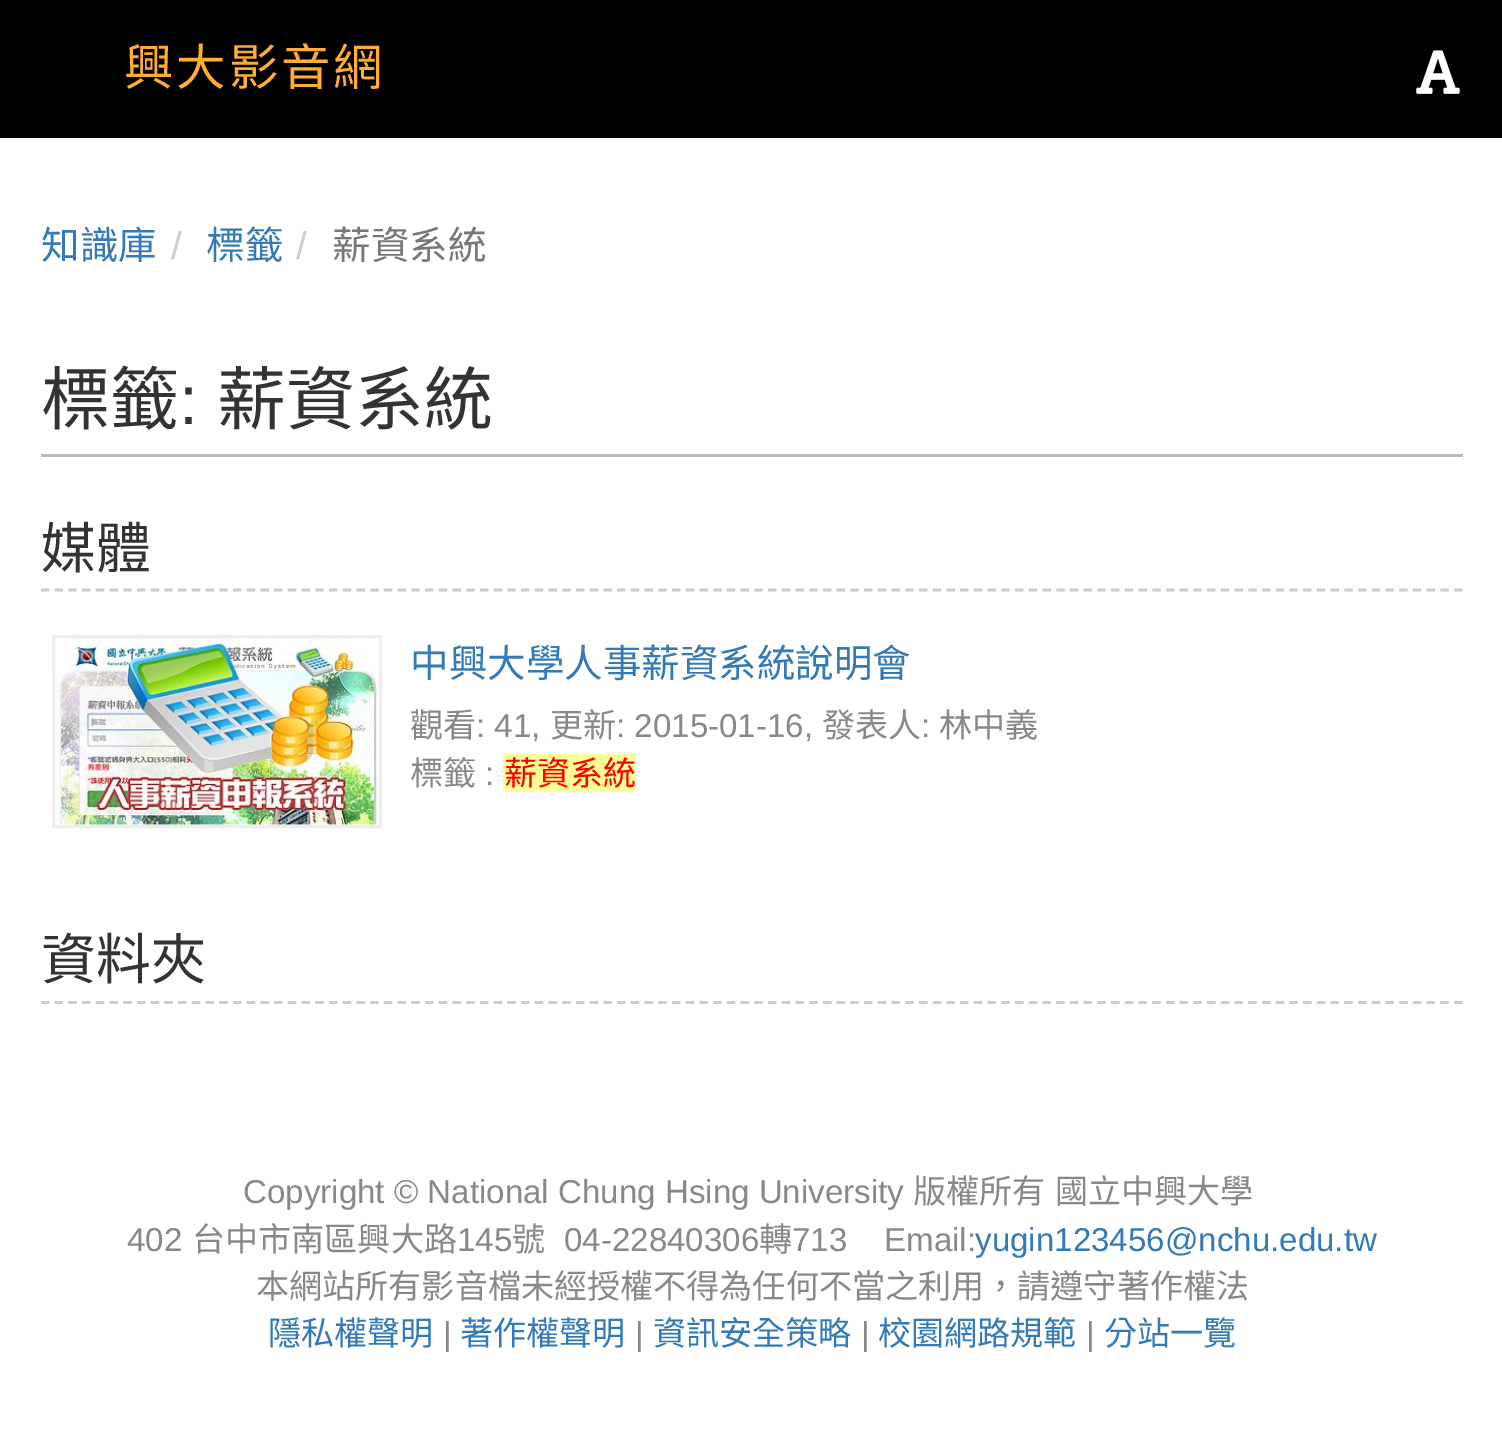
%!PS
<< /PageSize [1502 1447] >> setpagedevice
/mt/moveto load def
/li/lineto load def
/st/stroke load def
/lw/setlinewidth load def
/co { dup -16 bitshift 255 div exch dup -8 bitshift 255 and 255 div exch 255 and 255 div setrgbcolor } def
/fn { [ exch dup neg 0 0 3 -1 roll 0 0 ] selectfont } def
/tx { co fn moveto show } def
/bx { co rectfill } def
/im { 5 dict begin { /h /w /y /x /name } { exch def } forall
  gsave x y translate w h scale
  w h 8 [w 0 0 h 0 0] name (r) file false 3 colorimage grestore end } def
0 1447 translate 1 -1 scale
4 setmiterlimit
0 0 1502 1447 16#FFFFFF bx
0 0 1502 138 16#000000 bx
(media/1.raw) 1416 50 44 44 im
41 454 1422 3 16#BBBBBB bx
16#CCCCCC co
2.8 lw
[8.25 5.47] 0 setdash
41 590 mt 1463 590 li st
(media/2.raw) 55 638 324 187 im
16#EEEEEE co
3 lw
[] 0 setdash
53.5 636.5 327 190 rectstroke
503 754 132 38 16#FFFF96 bx
16#CCCCCC co
2.8 lw
[8.25 5.47] 0 setdash
41 1002.5 mt 1463 1002.5 li st
/NotoSansCJKTC-Regular 49.5 fn
16#FFAD33 co
124 85 mt 2.75 0 (興大影音網) ashow
(知識庫) 41 259 /NotoSansCJKTC-Regular 38.5 16#337AB7 tx
(/) 171 259 /LiberationSans-Regular 38.5 16#CCCCCC tx
(標籤) 206 259 /NotoSansCJKTC-Regular 38.5 16#337AB7 tx
(/) 296 259 /LiberationSans-Regular 38.5 16#CCCCCC tx
(薪資系統) 332 259 /NotoSansCJKTC-Regular 38.5 16#777777 tx
(標籤) 41 424 /NotoSansCJKTC-Regular 69 16#333333 tx
(:) 179 424 /LiberationSans-Regular 69 16#333333 tx
(薪資系統) 217 424 /NotoSansCJKTC-Regular 69 16#333333 tx
(媒體) 41 568 /NotoSansCJKTC-Regular 55 16#333333 tx
(中興大學人事薪資系統說明會) 410 677 /NotoSansCJKTC-Regular 38.5 16#337AB7 tx
(觀看) 410 737 /NotoSansCJKTC-Regular 33.1 16#888888 tx
(: 41,) 476 737 /LiberationSans-Regular 33.1 16#888888 tx
(更新) 550 737 /NotoSansCJKTC-Regular 33.1 16#888888 tx
(: 2015-01-16,) 616 737 /LiberationSans-Regular 33.1 16#888888 tx
(發表人) 822 737 /NotoSansCJKTC-Regular 33.1 16#888888 tx
(:) 921 737 /LiberationSans-Regular 33.1 16#888888 tx
(林中義) 939 737 /NotoSansCJKTC-Regular 33.1 16#888888 tx
(標籤) 410 785 /NotoSansCJKTC-Regular 33.1 16#888888 tx
(:) 485 785 /LiberationSans-Regular 33.1 16#888888 tx
(薪資系統) 504 785 /NotoSansCJKTC-Regular 33.1 16#FF0000 tx
(資料夾) 41 979 /NotoSansCJKTC-Regular 55 16#333333 tx
(Copyright © National Chung Hsing University) 243 1203 /LiberationSans-Regular 33.1 16#888888 tx
(版權所有) 913 1203 /NotoSansCJKTC-Regular 33.1 16#888888 tx
(國立中興大學) 1055 1203 /NotoSansCJKTC-Regular 33.1 16#888888 tx
(402) 127 1251 /LiberationSans-Regular 33.1 16#888888 tx
(台中市南區興大路) 192 1251 /NotoSansCJKTC-Regular 33.1 16#888888 tx
(145) 457 1251 /LiberationSans-Regular 33.1 16#888888 tx
(號) 512 1251 /NotoSansCJKTC-Regular 33.1 16#888888 tx
(04-22840306) 564 1251 /LiberationSans-Regular 33.1 16#888888 tx
(轉) 759 1251 /NotoSansCJKTC-Regular 33.1 16#888888 tx
(713    Email:) 792 1251 /LiberationSans-Regular 33.1 16#888888 tx
(yugin123456@nchu.edu.tw) 975 1251 /LiberationSans-Regular 33.1 16#337AB7 tx
(本網站所有影音檔未經授權不得為任何不當之利用，請遵守著作權法) 256 1298 /NotoSansCJKTC-Regular 33.1 16#888888 tx
(隱私權聲明) 268 1345 /NotoSansCJKTC-Regular 33.1 16#337AB7 tx
(|) 443 1345 /LiberationSans-Regular 33.1 16#888888 tx
(著作權聲明) 460 1345 /NotoSansCJKTC-Regular 33.1 16#337AB7 tx
(|) 635 1345 /LiberationSans-Regular 33.1 16#888888 tx
(資訊安全策略) 653 1345 /NotoSansCJKTC-Regular 33.1 16#337AB7 tx
(|) 861 1345 /LiberationSans-Regular 33.1 16#888888 tx
(校園網路規範) 878 1345 /NotoSansCJKTC-Regular 33.1 16#337AB7 tx
(|) 1086 1345 /LiberationSans-Regular 33.1 16#888888 tx
(分站一覽) 1104 1345 /NotoSansCJKTC-Regular 33.1 16#337AB7 tx
showpage
